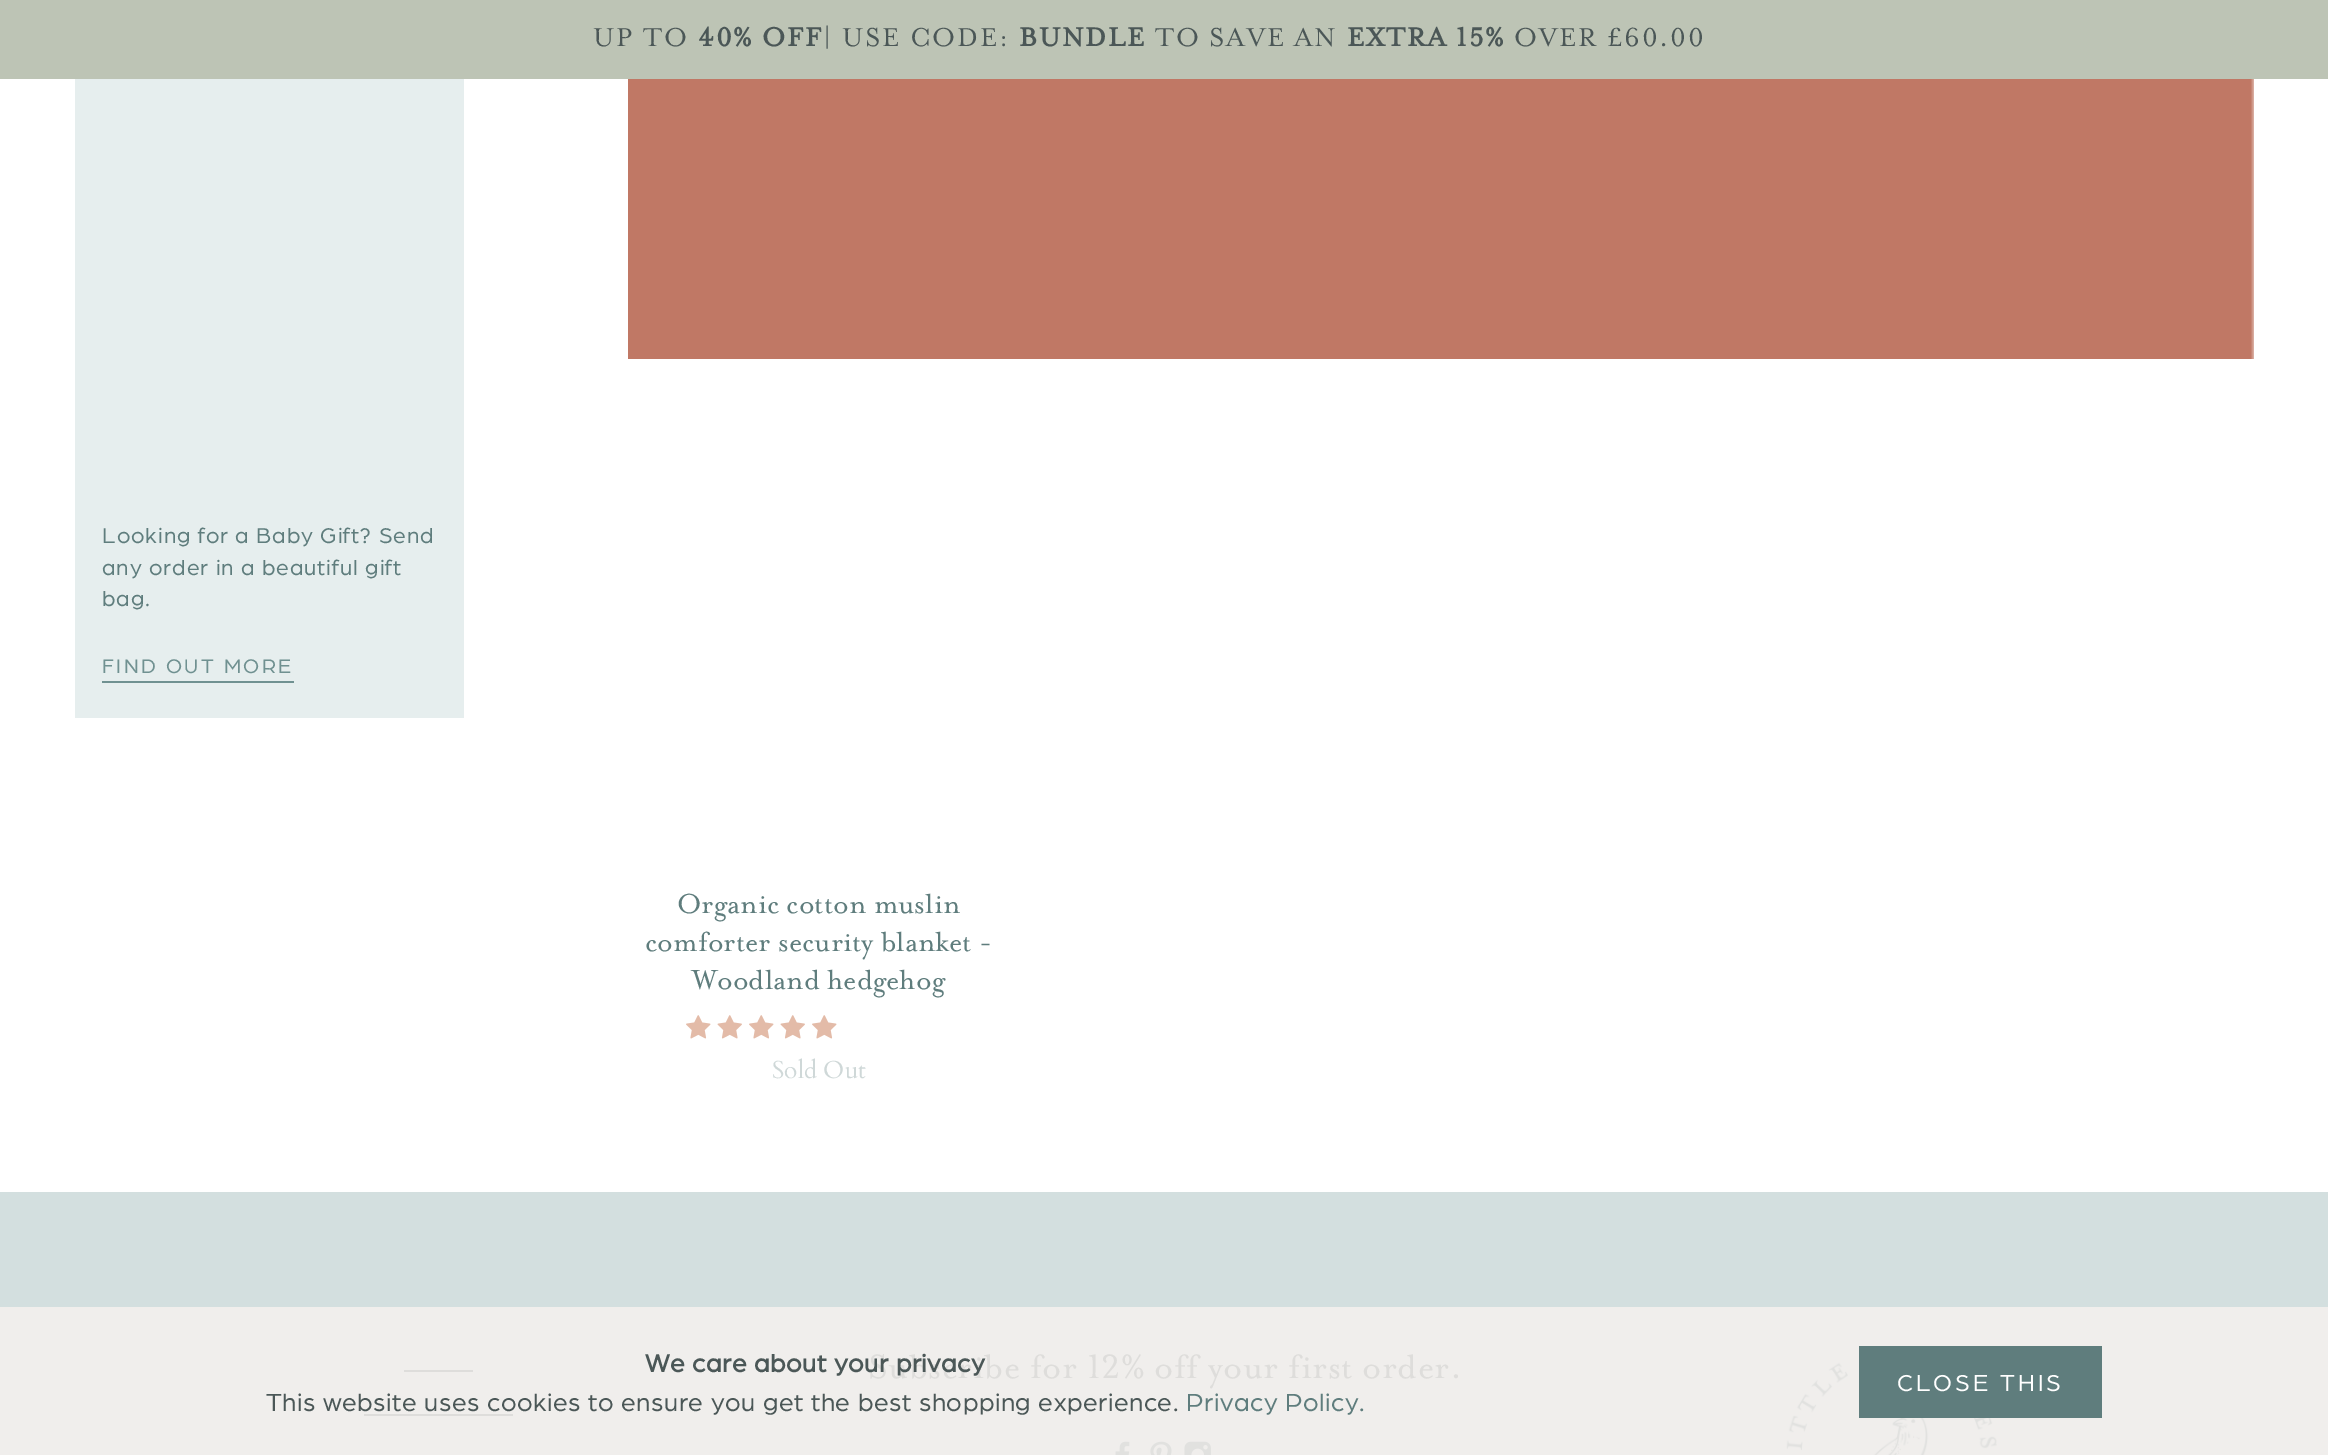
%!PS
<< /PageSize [2328 1455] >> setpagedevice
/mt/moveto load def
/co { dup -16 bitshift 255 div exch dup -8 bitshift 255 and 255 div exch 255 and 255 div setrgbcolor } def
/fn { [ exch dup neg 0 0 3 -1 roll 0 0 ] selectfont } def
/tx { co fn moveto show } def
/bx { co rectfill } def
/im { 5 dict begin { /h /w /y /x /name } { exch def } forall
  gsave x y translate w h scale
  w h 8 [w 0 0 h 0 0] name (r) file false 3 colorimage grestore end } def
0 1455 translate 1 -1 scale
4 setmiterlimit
0 0 2328 1455 16#FFFFFF bx
0 0 2328 79 16#BDC4B5 bx
75 79 389 639 16#E6EEEE bx
102 681 192 2 16#709191 bx
(media/1.raw) 628 79 1626 280 im
(media/2.raw) 686 1015 25 24 im
(media/3.raw) 717 1015 25 24 im
(media/2.raw) 749 1015 25 24 im
(media/3.raw) 780 1015 25 24 im
(media/2.raw) 812 1015 25 24 im
0 1307 2328 148 16#F0EEEC bx
(media/7.raw) 1786 1362 211 93 im
1859 1346 243 72 16#5F7D7D bx
0 1192 2328 115 16#D3DFDF bx
404 1370 69 2 16#DEDDDB bx
364 1414 149 2 16#DEDDDB bx
(media/4.raw) 1115 1441 15 14 im
(media/5.raw) 1150 1441 22 14 im
(media/6.raw) 1184 1441 27 14 im
/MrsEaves-Regular 29.75 fn
16#4B5757 co
593 46 mt 1.75 0 (UP TO) ashow
/MrsEaves-Bold 29.75 fn
698 46 mt 1.75 0 (40% OFF) ashow
/MrsEaves-Regular 29.75 fn
823 46 mt 1.75 0 (| USE CODE:) ashow
/MrsEaves-Bold 29.75 fn
1019 46 mt 1.75 0 (BUNDLE) ashow
/MrsEaves-Regular 29.75 fn
1155 46 mt 1.75 0 (TO SAVE AN) ashow
/MrsEaves-Bold 29.75 fn
1347 46 mt 1.75 0 (EXTRA 15%) ashow
/MrsEaves-Regular 29.75 fn
1514 46 mt 1.75 0 (OVER £60.00) ashow
/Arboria-Regular 22.75 fn
16#5F7D7D co
102 543 mt .9 0 (Looking for a Baby Gift? Send) ashow
102 575 mt .9 0 (any order in a beautiful gift) ashow
102 606 mt .9 0 (bag.) ashow
/Arboria-Regular 21 fn
16#709191 co
102 673 mt 2.5 0 (FIND OUT MORE) ashow
(Organic cotton muslin) 677 913 /MrsEaves-Regular 31.5 16#5F7D7D tx
(comforter security blanket -) 645 951 /MrsEaves-Regular 31.5 16#5F7D7D tx
(Woodland hedgehog) 692 989 /MrsEaves-Regular 31.5 16#5F7D7D tx
(Sold Out) 772 1078 /Cardo-Regular 24.5 16#CFD8D8 tx
/Arboria-Regular 26.25 fn
16#4B5757 co
266 1411 mt .53 0 (This website uses cookies to ensure you get the best shopping experience.) ashow
16#5F7D7D co
1186 1411 mt .53 0 (Privacy Policy.) ashow
/Arboria-Regular 24.5 fn
16#FFFFFF co
1897 1391 mt 3 0 (CLOSE THIS) ashow
/MrsEaves-Regular 38.5 fn
16#DEDDDB co
868 1378 mt .4 0 (Subscribe for 12% off your first order.) ashow
/Arboria-Bold 26.25 fn
16#4B5757 co
645 1372 mt .53 0 (We care about your privacy) ashow
showpage
